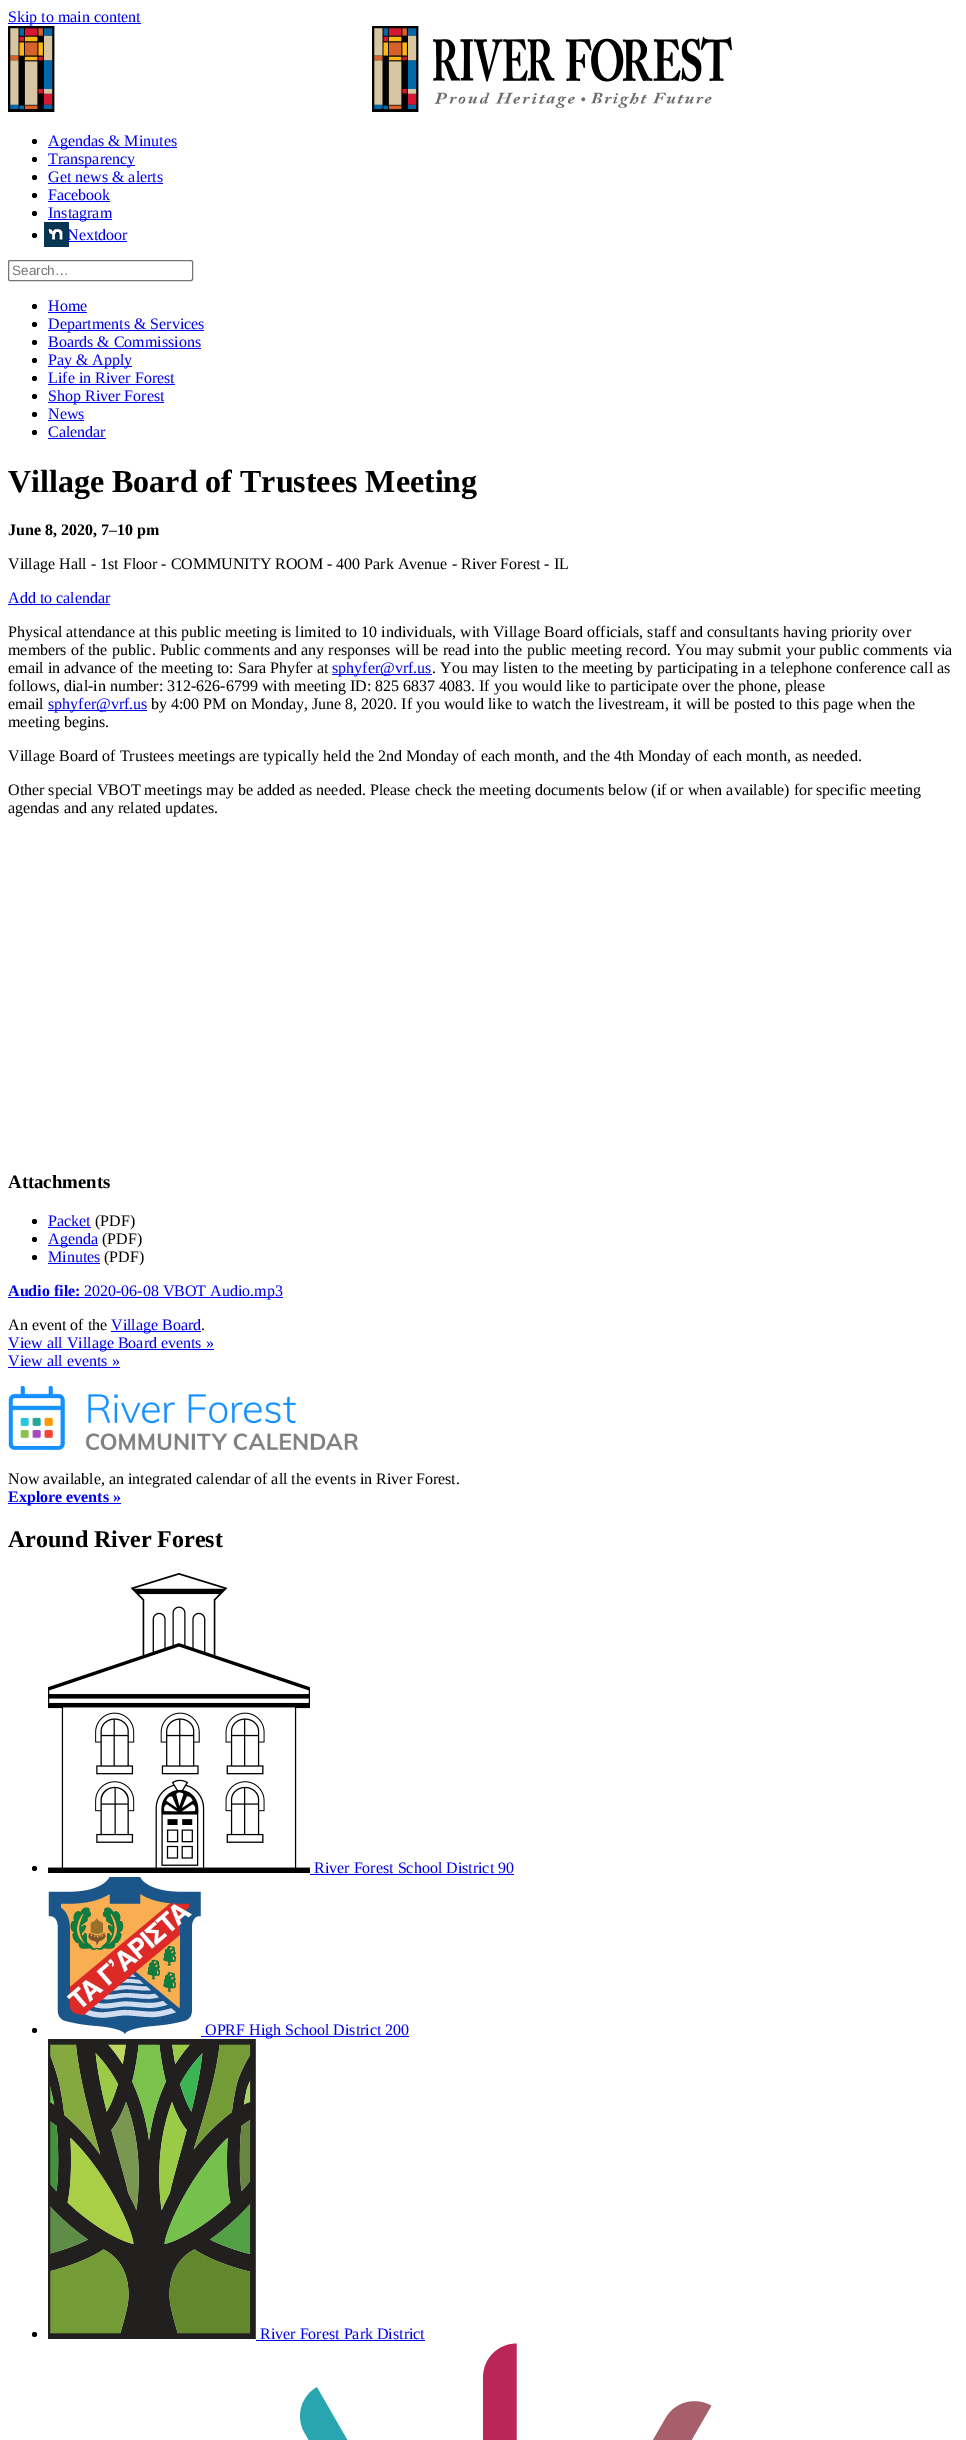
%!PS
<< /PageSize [966 2440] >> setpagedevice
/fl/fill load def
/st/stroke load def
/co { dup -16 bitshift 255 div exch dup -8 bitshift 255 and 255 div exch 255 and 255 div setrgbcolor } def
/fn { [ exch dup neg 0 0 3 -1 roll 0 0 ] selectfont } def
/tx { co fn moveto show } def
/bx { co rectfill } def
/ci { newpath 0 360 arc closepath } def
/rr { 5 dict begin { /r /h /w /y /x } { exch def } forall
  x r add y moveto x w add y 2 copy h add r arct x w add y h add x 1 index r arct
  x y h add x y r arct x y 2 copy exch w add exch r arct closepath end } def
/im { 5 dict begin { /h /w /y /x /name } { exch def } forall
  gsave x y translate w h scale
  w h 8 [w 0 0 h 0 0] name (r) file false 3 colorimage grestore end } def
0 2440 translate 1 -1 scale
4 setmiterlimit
0 0 966 2440 16#FFFFFF bx
8 23 133 1 16#0000EE bx
(media/1.raw) 8 26 47 86 im
(media/2.raw) 372 26 360 86 im
16#000000 co
34.5 141.5 2.5 ci fl
48 147 129 1 16#0000EE bx
16#000000 co
34.5 159.5 2.5 ci fl
48 165 87 1 16#0000EE bx
16#000000 co
34.5 177.5 2.5 ci fl
48 183 115 1 16#0000EE bx
16#000000 co
34.5 195.5 2.5 ci fl
48 201 62 1 16#0000EE bx
16#000000 co
34.5 213.5 2.5 ci fl
48 219 64 1 16#0000EE bx
16#000000 co
34.5 235.5 2.5 ci fl
(media/3.raw) 44 222 25 25 im
67 241 60 1 16#0000EE bx
16#767676 co
8.5 260.5 184 20 1.5 rr st
16#000000 co
34.5 306.5 2.5 ci fl
48 312 39 1 16#0000EE bx
16#000000 co
34.5 324.5 2.5 ci fl
48 330 156 1 16#0000EE bx
16#000000 co
34.5 342.5 2.5 ci fl
48 348 153 1 16#0000EE bx
16#000000 co
34.5 360.5 2.5 ci fl
48 366 84 1 16#0000EE bx
16#000000 co
34.5 378.5 2.5 ci fl
48 384 127 1 16#0000EE bx
16#000000 co
34.5 396.5 2.5 ci fl
48 402 116 1 16#0000EE bx
16#000000 co
34.5 414.5 2.5 ci fl
48 420 36 1 16#0000EE bx
16#000000 co
34.5 432.5 2.5 ci fl
48 438 58 1 16#0000EE bx
8 604 102 1 16#0000EE bx
332 674 100 1 16#0000EE bx
48 710 99 1 16#0000EE bx
16#000000 co
34.5 1221.5 2.5 ci fl
48 1227 43 1 16#0000EE bx
16#000000 co
34.5 1239.5 2.5 ci fl
48 1245 50 1 16#0000EE bx
16#000000 co
34.5 1257.5 2.5 ci fl
48 1263 52 1 16#0000EE bx
8 1297 275 1 16#0000EE bx
111 1331 90 1 16#0000EE bx
8 1349 206 1 16#0000EE bx
8 1367 112 1 16#0000EE bx
(media/4.raw) 8 1386 350 64 im
8 1503 113 1 16#0000EE bx
16#000000 co
34.5 1868.5 2.5 ci fl
(media/5.raw) 48 1573 262 300 im
310 1874 204 1 16#0000EE bx
16#000000 co
34.5 2030.5 2.5 ci fl
(media/6.raw) 48 1877 153 158 im
201 2036 208 1 16#0000EE bx
16#000000 co
34.5 2334.5 2.5 ci fl
(media/7.raw) 48 2039 208 300 im
256 2340 169 1 16#0000EE bx
(media/8.raw) 300 2343 412 97 im
(Skip to main content) 8 22 /LiberationSerif-Regular 16 16#0000EE tx
(Agendas & Minutes) 48 146 /LiberationSerif-Regular 16 16#0000EE tx
(Transparency) 48 164 /LiberationSerif-Regular 16 16#0000EE tx
(Get news & alerts) 48 182 /LiberationSerif-Regular 16 16#0000EE tx
(Facebook) 48 200 /LiberationSerif-Regular 16 16#0000EE tx
(Instagram) 48 218 /LiberationSerif-Regular 16 16#0000EE tx
(Nextdoor) 67 240 /LiberationSerif-Regular 16 16#0000EE tx
(Search…) 12 275 /LiberationSans-Regular 13.5 16#757575 tx
(Home) 48 311 /LiberationSerif-Regular 16 16#0000EE tx
(Departments & Services) 48 329 /LiberationSerif-Regular 16 16#0000EE tx
(Boards & Commissions) 48 347 /LiberationSerif-Regular 16 16#0000EE tx
(Pay & Apply) 48 365 /LiberationSerif-Regular 16 16#0000EE tx
(Life in River Forest) 48 383 /LiberationSerif-Regular 16 16#0000EE tx
(Shop River Forest) 48 401 /LiberationSerif-Regular 16 16#0000EE tx
(News) 48 419 /LiberationSerif-Regular 16 16#0000EE tx
(Calendar) 48 437 /LiberationSerif-Regular 16 16#0000EE tx
(Village Board of Trustees Meeting) 8 492 /LiberationSerif-Bold 32 16#000000 tx
(June 8, 2020, 7–10 pm) 8 535 /LiberationSerif-Bold 16 16#000000 tx
(Village Hall - 1st Floor - COMMUNITY ROOM - 400 Park Avenue - River Forest - IL) 8 569 /LiberationSerif-Regular 16 16#000000 tx
(Add to calendar) 8 603 /LiberationSerif-Regular 16 16#0000EE tx
(Physical attendance at this public meeting is limited to 10 individuals, with Village Board officials, staff and consultants having priority over) 8 637 /LiberationSerif-Regular 16 16#000000 tx
(members of the public. Public comments and any responses will be read into the public meeting record. You may submit your public comments via) 8 655 /LiberationSerif-Regular 16 16#000000 tx
(email in advance of the meeting to: Sara Phyfer at) 8 673 /LiberationSerif-Regular 16 16#000000 tx
(sphyfer@vrf.us) 332 673 /LiberationSerif-Regular 16 16#0000EE tx
(. You may listen to the meeting by participating in a telephone conference call as) 432 673 /LiberationSerif-Regular 16 16#000000 tx
(follows, dial-in number: 312-626-6799 with meeting ID: 825 6837 4083. If you would like to participate over the phone, please) 8 691 /LiberationSerif-Regular 16 16#000000 tx
(email) 8 709 /LiberationSerif-Regular 16 16#000000 tx
(sphyfer@vrf.us) 48 709 /LiberationSerif-Regular 16 16#0000EE tx
(by 4:00 PM on Monday, June 8, 2020. If you would like to watch the livestream, it will be posted to this page when the) 151 709 /LiberationSerif-Regular 16 16#000000 tx
(meeting begins.) 8 727 /LiberationSerif-Regular 16 16#000000 tx
(Village Board of Trustees meetings are typically held the 2nd Monday of each month, and the 4th Monday of each month, as needed.) 8 761 /LiberationSerif-Regular 16 16#000000 tx
(Other special VBOT meetings may be added as needed. Please check the meeting documents below \(if or when available\) for specific meeting) 8 795 /LiberationSerif-Regular 16 16#000000 tx
(agendas and any related updates.) 8 813 /LiberationSerif-Regular 16 16#000000 tx
(Attachments) 8 1188 /LiberationSerif-Bold 18.75 16#000000 tx
(Packet) 48 1226 /LiberationSerif-Regular 16 16#0000EE tx
(\(PDF\)) 95 1226 /LiberationSerif-Regular 16 16#000000 tx
(Agenda) 48 1244 /LiberationSerif-Regular 16 16#0000EE tx
(\(PDF\)) 102 1244 /LiberationSerif-Regular 16 16#000000 tx
(Minutes) 48 1262 /LiberationSerif-Regular 16 16#0000EE tx
(\(PDF\)) 104 1262 /LiberationSerif-Regular 16 16#000000 tx
(Audio file:) 8 1296 /LiberationSerif-Bold 16 16#0000EE tx
(2020-06-08 VBOT Audio.mp3) 84 1296 /LiberationSerif-Regular 16 16#0000EE tx
(An event of the) 8 1330 /LiberationSerif-Regular 16 16#000000 tx
(Village Board) 111 1330 /LiberationSerif-Regular 16 16#0000EE tx
(.) 201 1330 /LiberationSerif-Regular 16 16#000000 tx
(View all Village Board events ») 8 1348 /LiberationSerif-Regular 16 16#0000EE tx
(View all events ») 8 1366 /LiberationSerif-Regular 16 16#0000EE tx
(Now available, an integrated calendar of all the events in River Forest.) 8 1484 /LiberationSerif-Regular 16 16#000000 tx
(Explore events ») 8 1502 /LiberationSerif-Bold 16 16#0000EE tx
(Around River Forest) 8 1547 /LiberationSerif-Bold 24 16#000000 tx
(River Forest School District 90) 314 1873 /LiberationSerif-Regular 16 16#0000EE tx
(OPRF High School District 200) 205 2035 /LiberationSerif-Regular 16 16#0000EE tx
(River Forest Park District) 260 2339 /LiberationSerif-Regular 16 16#0000EE tx
showpage
